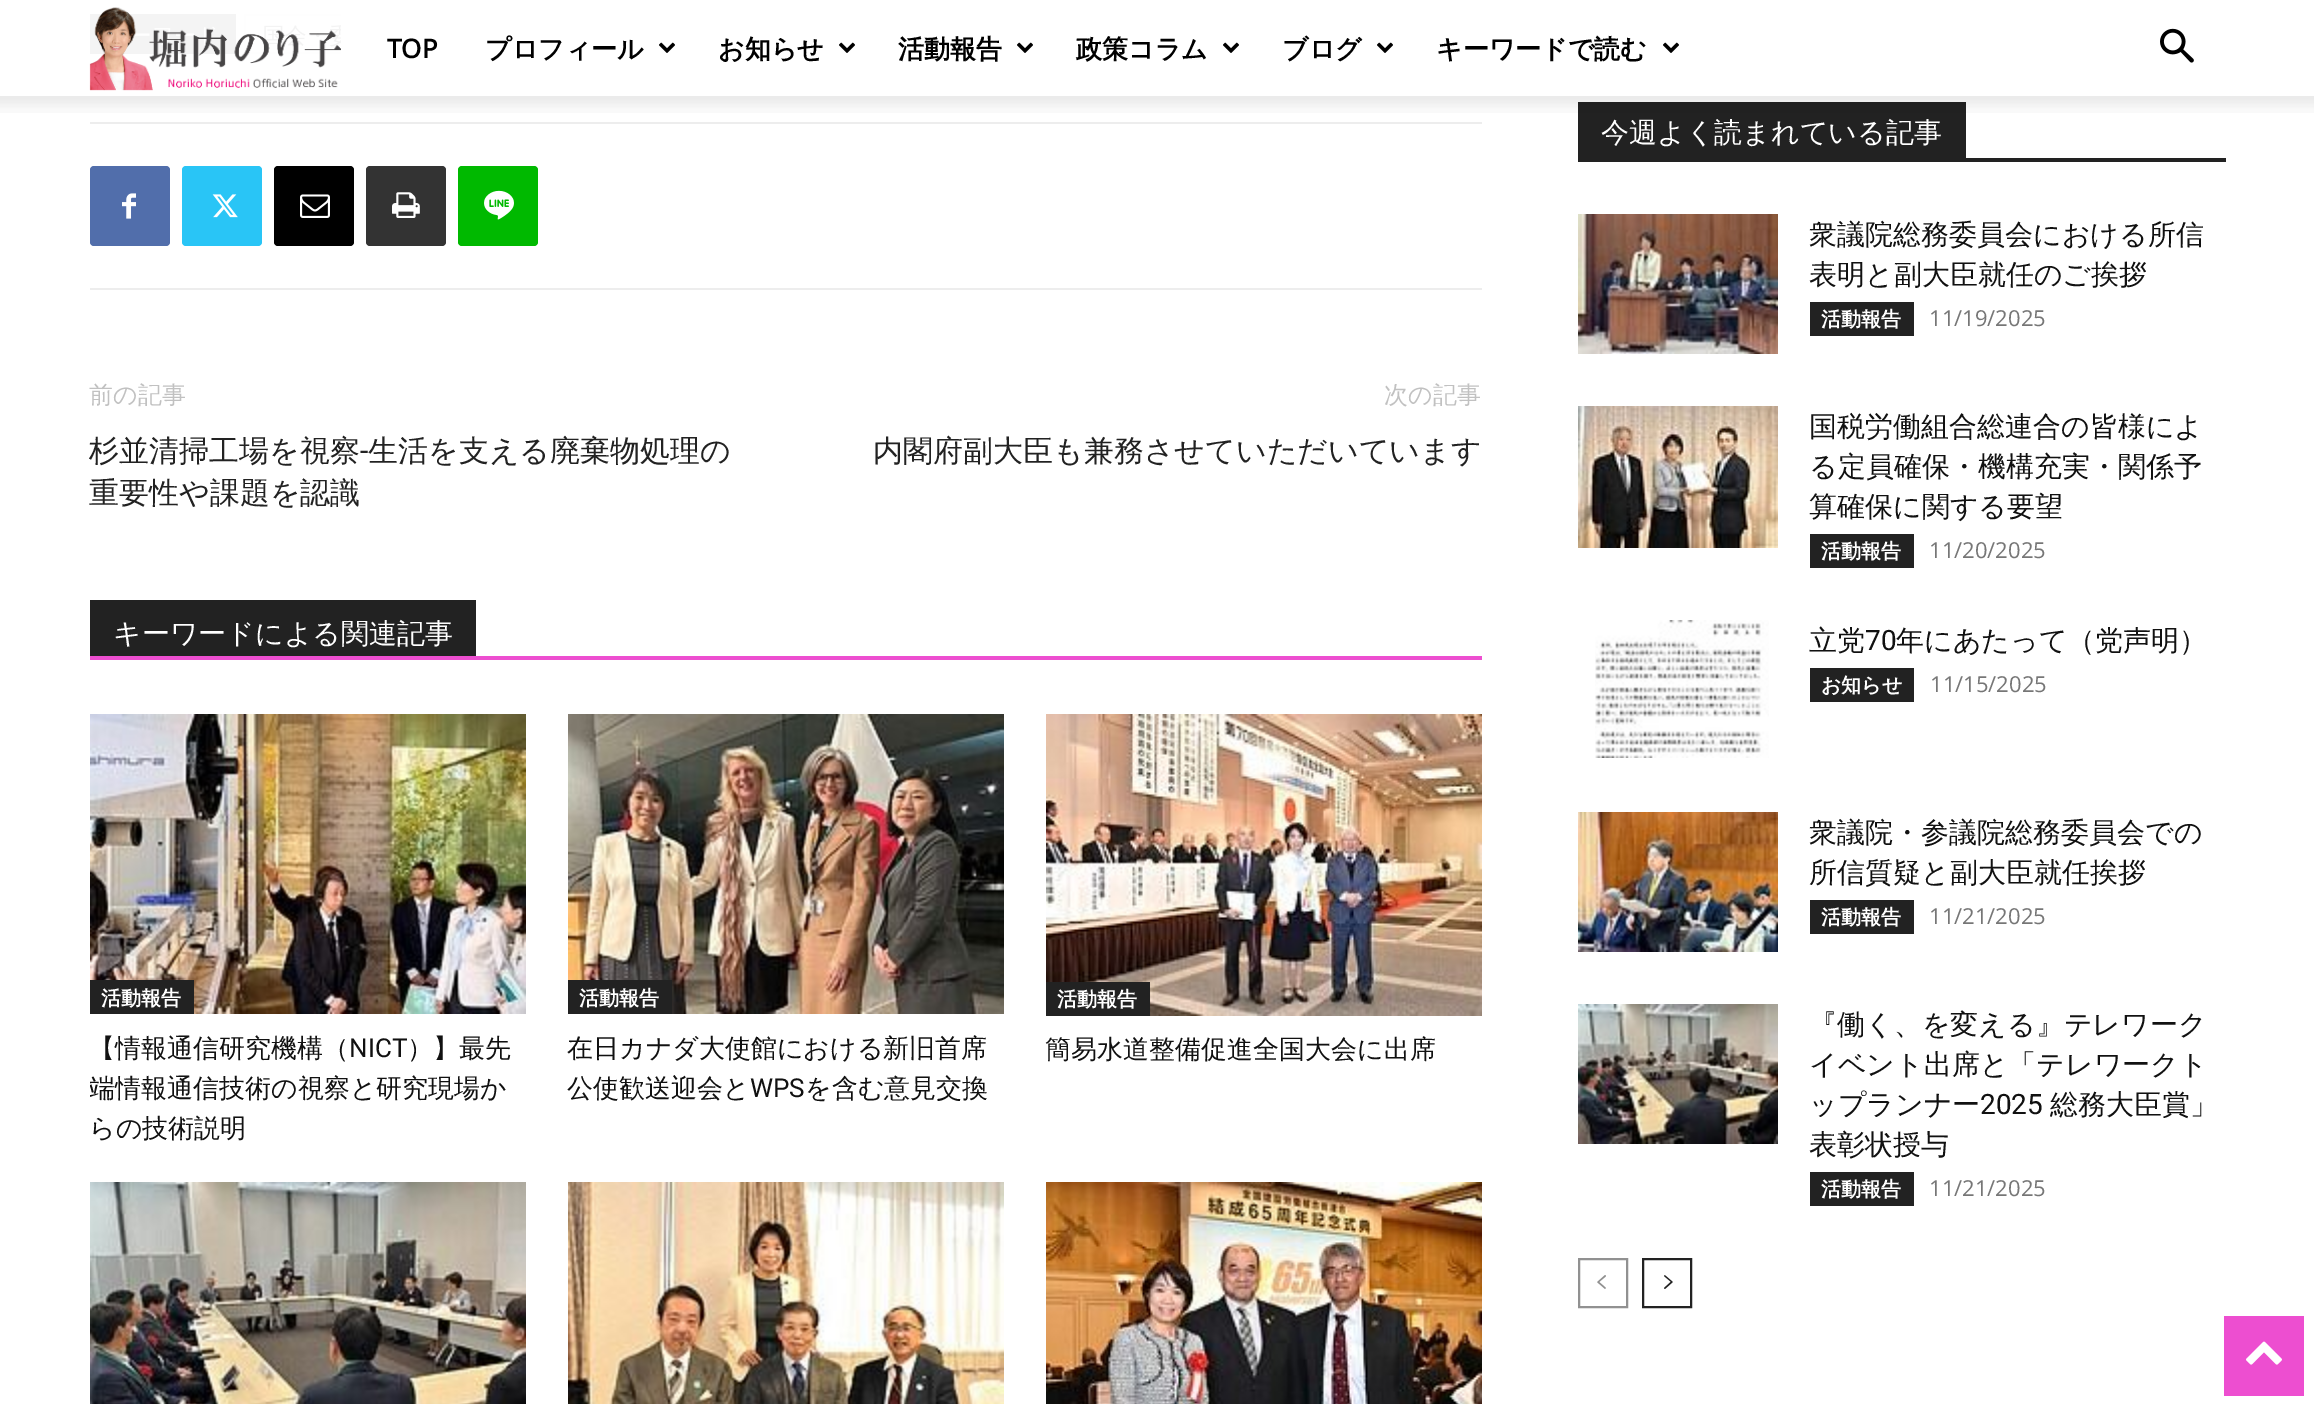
%!PS
<< /PageSize [2314 1404] >> setpagedevice
/fl/fill load def
/gs/gsave load def
/gr/grestore load def
/lw/setlinewidth load def
/co { dup -16 bitshift 255 div exch dup -8 bitshift 255 and 255 div exch 255 and 255 div setrgbcolor } def
/fn { [ exch dup neg 0 0 3 -1 roll 0 0 ] selectfont } def
/tx { co fn moveto show } def
/bx { co rectfill } def
/rr { 5 dict begin { /r /h /w /y /x } { exch def } forall
  x r add y moveto x w add y 2 copy h add r arct x w add y h add x 1 index r arct
  x y h add x y r arct x y 2 copy exch w add exch r arct closepath end } def
/im { 5 dict begin { /h /w /y /x /name } { exch def } forall
  gsave x y translate w h scale
  w h 8 [w 0 0 h 0 0] name (r) file false 3 colorimage grestore end } def
0 1404 translate 1 -1 scale
4 setmiterlimit
0 0 2314 1404 16#FFFFFF bx
90 14 146 40 16#F4F4F4 bx
(media/1.raw) 89 7 252 84 im
(media/2.raw) 659 42 16 11 im
(media/2.raw) 839 42 16 11 im
(media/2.raw) 1017 42 16 11 im
(media/2.raw) 1223 42 16 11 im
(media/2.raw) 1377 42 16 11 im
(media/2.raw) 1663 42 16 11 im
(media/3.raw) 2160 28 34 35 im
1578 102 388 56 16#222222 bx
(media/4.raw) 0 96 2314 17 im
90 122 1392 2 16#EDEDED bx
90 288 1392 2 16#EDEDED bx
16#516EAB co
90 166 80 80 4 rr fl
(media/5.raw) 122 193 14 26 im
16#29C5F6 co
182 166 80 80 4 rr fl
(media/6.raw) 212 194 26 24 im
16#000000 co
274 166 80 80 4 rr fl
(media/7.raw) 300 194 30 24 im
16#333333 co
366 166 80 80 4 rr fl
(media/8.raw) 392 192 28 26 im
16#00B900 co
458 166 80 80 4 rr fl
(media/9.raw) 484 190 30 30 im
90 656 1392 4 16#ED4ED0 bx
90 600 386 56 16#222222 bx
(media/10.raw) 90 714 436 300 im
90 980 104 34 16#222222 bx
(media/11.raw) 568 714 436 300 im
568 980 104 34 16#222222 bx
(media/12.raw) 1046 714 436 302 im
1046 982 104 34 16#222222 bx
(media/13.raw) 90 1182 436 222 im
(media/14.raw) 568 1182 436 222 im
(media/15.raw) 1046 1182 436 222 im
1578 158 648 4 16#222222 bx
(media/16.raw) 1578 214 200 140 im
1810 302 104 34 16#222222 bx
(media/17.raw) 1578 406 200 142 im
1810 534 104 34 16#222222 bx
(media/18.raw) 1595 620 174 138 im
1810 668 104 34 16#222222 bx
(media/19.raw) 1578 812 200 140 im
1810 900 104 34 16#222222 bx
(media/20.raw) 1578 1004 200 140 im
1810 1172 104 34 16#222222 bx
16#919191 co
2 lw
1579 1259 48 48 rectstroke
(media/21.raw) 1597 1275 9 14 im
16#222222 co
1643 1259 48 48 rectstroke
(media/22.raw) 1664 1275 9 14 im
2224 1316 80 80 16#ED4ED0 bx
(media/23.raw) 2246 1341 36 24 im
(TOP) 387 58 /NotoSans-Bold 26 16#000000 tx
(プロフィール) 485 58 /WenQuanYiZenHei-Bold 26 16#000000 tx
(お知らせ) 718 58 /WenQuanYiZenHei-Bold 26 16#000000 tx
(活動報告) 898 58 /WenQuanYiZenHei-Bold 26 16#000000 tx
(政策コラム) 1076 58 /WenQuanYiZenHei-Bold 26 16#000000 tx
(ブログ) 1282 58 /WenQuanYiZenHei-Bold 26 16#000000 tx
(キーワードで読む) 1436 58 /WenQuanYiZenHei-Bold 26 16#000000 tx
(前の記事) 89 403 /WenQuanYiZenHei-Medium 24 16#C1C1C1 tx
(杉並清掃工場を視察) 89 461 /WenQuanYiZenHei-Medium 30 16#222222 tx
(-) 360 461 /Roboto-Regular 30 16#222222 tx
(生活を支える廃棄物処理の) 368 461 /WenQuanYiZenHei-Medium 30 16#222222 tx
(重要性や課題を認識) 89 503 /WenQuanYiZenHei-Medium 30 16#222222 tx
(次の記事) 1384 403 /WenQuanYiZenHei-Medium 24 16#C1C1C1 tx
(内閣府副大臣も兼務させていただいています) 873 461 /WenQuanYiZenHei-Medium 30 16#222222 tx
(キーワードによる関連記事) 113 643 /WenQuanYiZenHei-Medium 28 16#FFFFFF tx
(活動報告) 101 1005 /WenQuanYiZenHei-Bold 20 16#FFFFFF tx
(【情報通信研究機構（) 89 1057 /WenQuanYiZenHei-Medium 26 16#111111 tx
(NICT) 349 1057 /Roboto-Regular 26 16#111111 tx
(）】最先) 407 1057 /WenQuanYiZenHei-Medium 26 16#111111 tx
gs
90 600 1392 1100 rectclip
(端情報通信技術の視察と研究現場か) 89 1097 /WenQuanYiZenHei-Medium 26 16#111111 tx
gr
(らの技術説明) 89 1137 /WenQuanYiZenHei-Medium 26 16#111111 tx
(活動報告) 579 1005 /WenQuanYiZenHei-Bold 20 16#FFFFFF tx
(在日カナダ大使館における新旧首席) 567 1057 /WenQuanYiZenHei-Medium 26 16#111111 tx
(公使歓送迎会と) 567 1097 /WenQuanYiZenHei-Medium 26 16#111111 tx
(WPS) 750 1097 /Roboto-Regular 26 16#111111 tx
(を含む意見交換) 805 1097 /WenQuanYiZenHei-Medium 26 16#111111 tx
(活動報告) 1057 1006 /WenQuanYiZenHei-Bold 20 16#FFFFFF tx
(簡易水道整備促進全国大会に出席) 1045 1058 /WenQuanYiZenHei-Medium 26 16#111111 tx
(今週よく読まれている記事) 1601 142 /WenQuanYiZenHei-Medium 28 16#FFFFFF tx
(衆議院総務委員会における所信) 1809 244 /WenQuanYiZenHei-Medium 28 16#111111 tx
(表明と副大臣就任のご挨拶) 1809 284 /WenQuanYiZenHei-Medium 28 16#111111 tx
(活動報告) 1821 326 /WenQuanYiZenHei-Bold 20 16#FFFFFF tx
(11/19/2025) 1929 326 /OpenSans-Regular 22 16#767676 tx
(国税労働組合総連合の皆様によ) 1809 436 /WenQuanYiZenHei-Medium 28 16#111111 tx
(る定員確保・機構充実・関係予) 1809 476 /WenQuanYiZenHei-Medium 28 16#111111 tx
(算確保に関する要望) 1809 516 /WenQuanYiZenHei-Medium 28 16#111111 tx
(活動報告) 1821 558 /WenQuanYiZenHei-Bold 20 16#FFFFFF tx
(11/20/2025) 1929 558 /OpenSans-Regular 22 16#767676 tx
(立党) 1809 650 /WenQuanYiZenHei-Medium 28 16#111111 tx
(70) 1865 650 /Roboto-Regular 28 16#111111 tx
(年にあたって（党声明）) 1896 650 /WenQuanYiZenHei-Medium 28 16#111111 tx
(お知らせ) 1821 692 /WenQuanYiZenHei-Bold 20 16#FFFFFF tx
(11/15/2025) 1930 692 /OpenSans-Regular 22 16#767676 tx
(衆議院・参議院総務委員会での) 1809 842 /WenQuanYiZenHei-Medium 28 16#111111 tx
(所信質疑と副大臣就任挨拶) 1809 882 /WenQuanYiZenHei-Medium 28 16#111111 tx
(活動報告) 1821 924 /WenQuanYiZenHei-Bold 20 16#FFFFFF tx
(11/21/2025) 1929 924 /OpenSans-Regular 22 16#767676 tx
(『働く、を変える』テレワーク) 1809 1034 /WenQuanYiZenHei-Medium 28 16#111111 tx
(イベント出席と「テレワークト) 1809 1074 /WenQuanYiZenHei-Medium 28 16#111111 tx
(ップランナー) 1809 1114 /WenQuanYiZenHei-Medium 28 16#111111 tx
(2025) 1980 1114 /Roboto-Regular 28 16#111111 tx
(総務大臣賞」) 2050 1114 /WenQuanYiZenHei-Medium 28 16#111111 tx
(表彰状授与) 1809 1154 /WenQuanYiZenHei-Medium 28 16#111111 tx
(活動報告) 1821 1196 /WenQuanYiZenHei-Bold 20 16#FFFFFF tx
(11/21/2025) 1929 1196 /OpenSans-Regular 22 16#767676 tx
showpage
